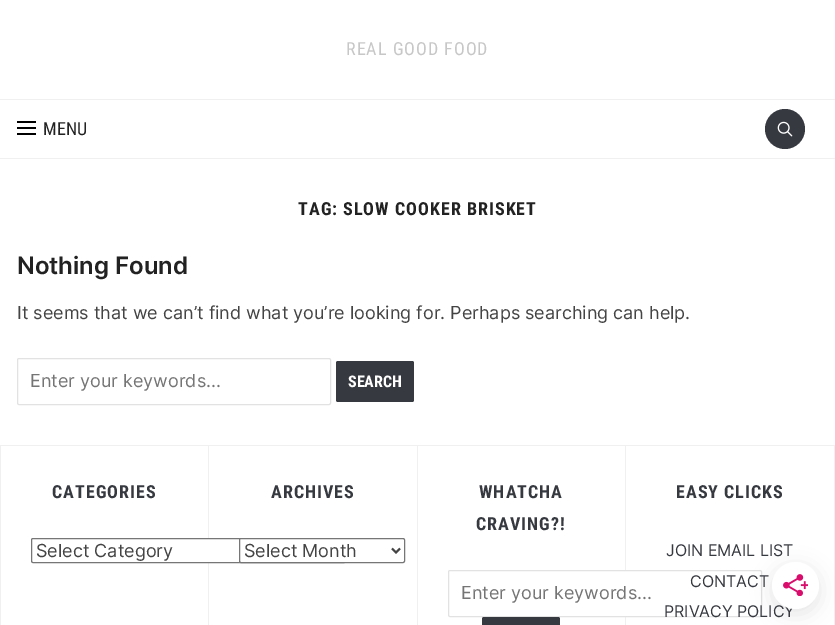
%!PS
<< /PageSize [835 625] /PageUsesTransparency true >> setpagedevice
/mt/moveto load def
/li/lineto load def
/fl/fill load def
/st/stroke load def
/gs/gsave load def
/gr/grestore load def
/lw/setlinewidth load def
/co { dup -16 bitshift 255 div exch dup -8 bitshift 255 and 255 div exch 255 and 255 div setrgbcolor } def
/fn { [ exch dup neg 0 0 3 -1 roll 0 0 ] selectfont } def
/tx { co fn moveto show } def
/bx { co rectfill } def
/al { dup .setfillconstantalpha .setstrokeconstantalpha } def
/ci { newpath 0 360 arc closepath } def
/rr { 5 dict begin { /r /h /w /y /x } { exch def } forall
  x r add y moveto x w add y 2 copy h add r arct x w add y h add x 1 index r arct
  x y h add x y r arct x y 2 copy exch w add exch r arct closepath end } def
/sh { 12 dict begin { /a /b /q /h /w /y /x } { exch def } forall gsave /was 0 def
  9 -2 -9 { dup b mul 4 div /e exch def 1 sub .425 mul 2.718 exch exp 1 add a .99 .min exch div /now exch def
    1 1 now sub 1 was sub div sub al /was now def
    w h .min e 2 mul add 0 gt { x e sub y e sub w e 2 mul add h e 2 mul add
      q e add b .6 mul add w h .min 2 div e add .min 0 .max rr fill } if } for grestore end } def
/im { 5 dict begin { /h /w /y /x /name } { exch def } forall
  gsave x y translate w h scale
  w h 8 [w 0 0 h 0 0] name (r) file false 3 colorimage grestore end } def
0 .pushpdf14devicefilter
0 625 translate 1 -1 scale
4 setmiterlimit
0 0 835 625 16#FFFFFF bx
0 99 835 1 16#F0F0F0 bx
0 158 835 1 16#F0F0F0 bx
17 121 19 2 16#000000 bx
17 127 19 2 16#000000 bx
17 133 19 2 16#000000 bx
16#363940 co
785 129 20 ci fl
(media/1.raw) 777 121 16 16 im
16#E2E2E2 co
17.5 358.5 313 46 1.5 rr st
16#363940 co
336 361 78 41 2 rr fl
0 445 835 1 16#F0F0F0 bx
834 446 1 179 16#F0F0F0 bx
0 446 1 179 16#F0F0F0 bx
208 446 1 179 16#F0F0F0 bx
16#FFFFFF co
31.5 538.5 314 24 1.5 rr gs fl gr
16#767676 co
st
417 446 1 179 16#F0F0F0 bx
16#FFFFFF co
239.5 538.5 165 24 1.5 rr gs fl gr
16#767676 co
st
16#444444 co
2 lw
392 548.5 mt 396 552.5 li 400 548.5 li st
625 446 1 179 16#F0F0F0 bx
16#FFFFFF co
448.5 570.5 313 46 1.5 rr gs fl gr
16#E2E2E2 co
1 lw
st
16#363940 co
482 617 78 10 2 rr fl
16#000000 co
772 567 47 47 23.5 10 .1 sh
/RobotoCondensed-Regular 18 fn
16#C7C7C7 co
346 55 mt 1 0 (REAL GOOD FOOD) ashow
(MENU) 43 135 /RobotoCondensed-Regular 18 16#222222 tx
/RobotoCondensed-Bold 18 fn
298 215 mt 1 0 (TAG: SLOW COOKER BRISKET) ashow
(Nothing Found) 17 274 /Inter-SemiBold 24 16#222222 tx
(It seems that we can’t find what you’re looking for. Perhaps searching can help.) 17 319 /Inter-Regular 18 16#444444 tx
(Enter your keywords...) 30 387 /Inter-Regular 18 16#757575 tx
(SEARCH) 348 387 /RobotoCondensed-Bold 16 16#FFFFFF tx
/RobotoCondensed-Bold 18 fn
16#363940 co
52 498 mt 1 0 (CATEGORIES) ashow
(Select Category) 36 557 /Inter-Regular 18 16#444444 tx
/RobotoCondensed-Bold 18 fn
16#363940 co
271 498 mt 1 0 (ARCHIVES) ashow
(Select Month) 244 557 /Inter-Regular 18 16#444444 tx
/RobotoCondensed-Bold 18 fn
16#363940 co
479 498 mt 1 0 (WHATCHA) ashow
476 530 mt 1 0 (CRAVING?!) ashow
(Enter your keywords...) 461 599 /Inter-Regular 18 16#757575 tx
/RobotoCondensed-Bold 18 fn
16#363940 co
676 498 mt 1 0 (EASY CLICKS) ashow
(JOIN EMAIL LIST) 666 556 /Inter-Regular 16 16#363940 tx
(CONTACT) 690 587 /Inter-Regular 16 16#363940 tx
(PRIVACY POLICY) 664 617 /Inter-Regular 16 16#363940 tx
16#FFFFFF co
795.5 585.5 23.5 ci fl
(media/2.raw) 783 574 25 22 im
.poppdf14devicefilter showpage
